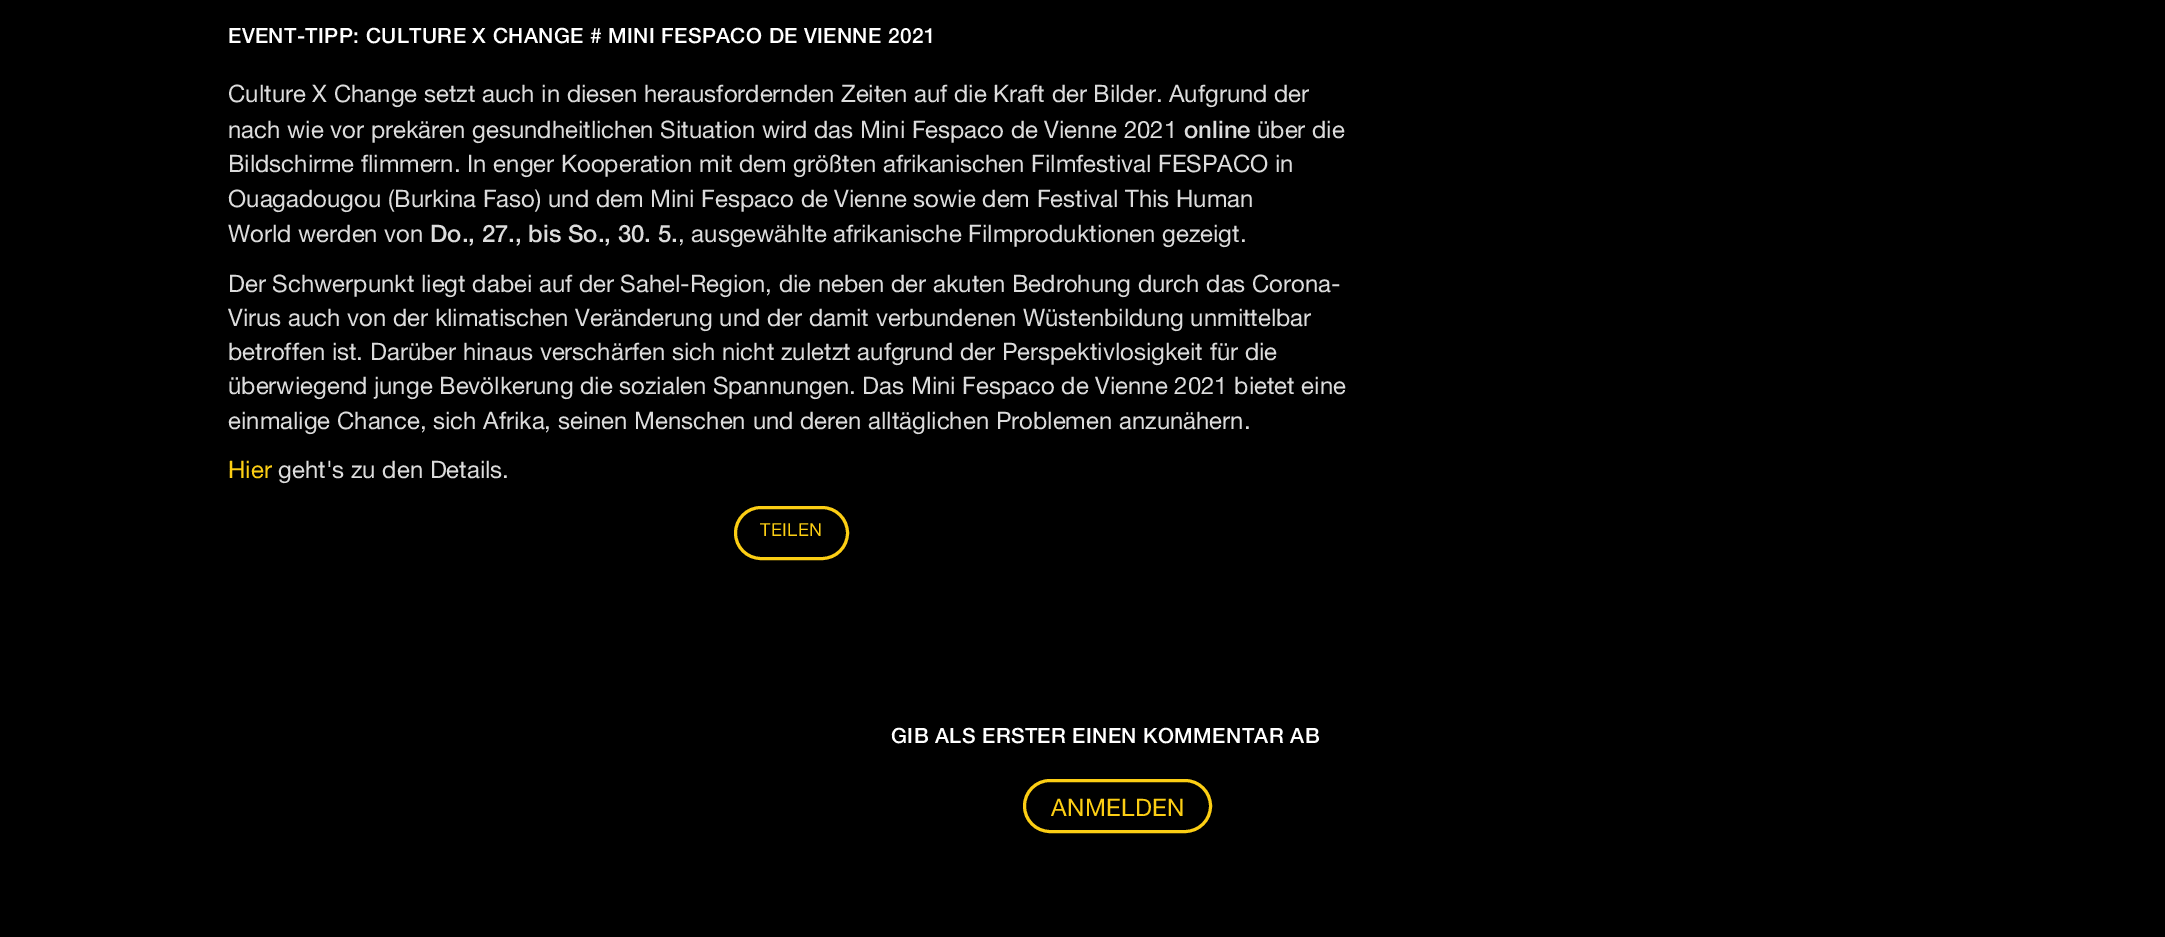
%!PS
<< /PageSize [2165 937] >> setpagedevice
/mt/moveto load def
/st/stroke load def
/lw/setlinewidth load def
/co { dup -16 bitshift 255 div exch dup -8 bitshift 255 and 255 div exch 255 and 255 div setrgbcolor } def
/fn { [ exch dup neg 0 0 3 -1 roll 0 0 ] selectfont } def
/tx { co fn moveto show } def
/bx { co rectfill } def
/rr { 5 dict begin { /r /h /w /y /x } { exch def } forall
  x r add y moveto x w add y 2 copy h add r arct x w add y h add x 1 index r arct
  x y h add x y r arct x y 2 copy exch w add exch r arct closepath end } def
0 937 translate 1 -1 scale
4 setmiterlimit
0 0 2165 937 16#000000 bx
16#FCCE14 co
3 lw
735.5 507.5 112 51 25.5 rr st
1024.5 780.5 186 51 25.5 rr st
/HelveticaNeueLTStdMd-Regular 21 fn
16#FFFFFF co
228 43 mt .38 0 (EVENT-TIPP: CULTURE X CHANGE # MINI FESPACO DE VIENNE 2021) ashow
(Culture X Change setzt auch in diesen herausfordernden Zeiten auf die Kraft der Bilder. Aufgrund der) 228 102 /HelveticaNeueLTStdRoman-Regular 24 16#DCDCDC tx
(nach wie vor prekären gesundheitlichen Situation wird das Mini Fespaco de Vienne 2021) 228 138 /HelveticaNeueLTStdRoman-Regular 24 16#DCDCDC tx
(online) 1184 138 /HelveticaNeueLTStdMd-Regular 24 16#DCDCDC tx
(über die) 1257 138 /HelveticaNeueLTStdRoman-Regular 24 16#DCDCDC tx
(Bildschirme flimmern. In enger Kooperation mit dem größten afrikanischen Filmfestival FESPACO in) 228 172 /HelveticaNeueLTStdRoman-Regular 24 16#DCDCDC tx
(Ouagadougou \(Burkina Faso\) und dem Mini Fespaco de Vienne sowie dem Festival This Human) 228 207 /HelveticaNeueLTStdRoman-Regular 24 16#DCDCDC tx
(World werden von) 228 242 /HelveticaNeueLTStdRoman-Regular 24 16#DCDCDC tx
(Do., 27., bis So., 30. 5.) 430 242 /HelveticaNeueLTStdMd-Regular 24 16#DCDCDC tx
(, ausgewählte afrikanische Filmproduktionen gezeigt.) 678 242 /HelveticaNeueLTStdRoman-Regular 24 16#DCDCDC tx
(Der Schwerpunkt liegt dabei auf der Sahel-Region, die neben der akuten Bedrohung durch das Corona-) 228 292 /HelveticaNeueLTStdRoman-Regular 24 16#DCDCDC tx
(Virus auch von der klimatischen Veränderung und der damit verbundenen Wüstenbildung unmittelbar) 228 326 /HelveticaNeueLTStdRoman-Regular 24 16#DCDCDC tx
(betroffen ist. Darüber hinaus verschärfen sich nicht zuletzt aufgrund der Perspektivlosigkeit für die) 228 360 /HelveticaNeueLTStdRoman-Regular 24 16#DCDCDC tx
(überwiegend junge Bevölkerung die sozialen Spannungen. Das Mini Fespaco de Vienne 2021 bietet eine) 228 394 /HelveticaNeueLTStdRoman-Regular 24 16#DCDCDC tx
(einmalige Chance, sich Afrika, seinen Menschen und deren alltäglichen Problemen anzunähern.) 228 429 /HelveticaNeueLTStdRoman-Regular 24 16#DCDCDC tx
(Hier) 228 478 /HelveticaNeueLTStdRoman-Regular 24 16#FCCE14 tx
(geht's zu den Details.) 278 478 /HelveticaNeueLTStdRoman-Regular 24 16#DCDCDC tx
/HelveticaNeueLTStdRoman-Regular 18 fn
16#FCCE14 co
760 536 mt .38 0 (TEILEN) ashow
/HelveticaNeueLTStdMd-Regular 21 fn
16#FFFFFF co
891 743 mt .38 0 (GIB ALS ERSTER EINEN KOMMENTAR AB) ashow
/HelveticaNeueLTStdRoman-Regular 24 fn
16#FCCE14 co
1051 816 mt .38 0 (ANMELDEN) ashow
showpage
